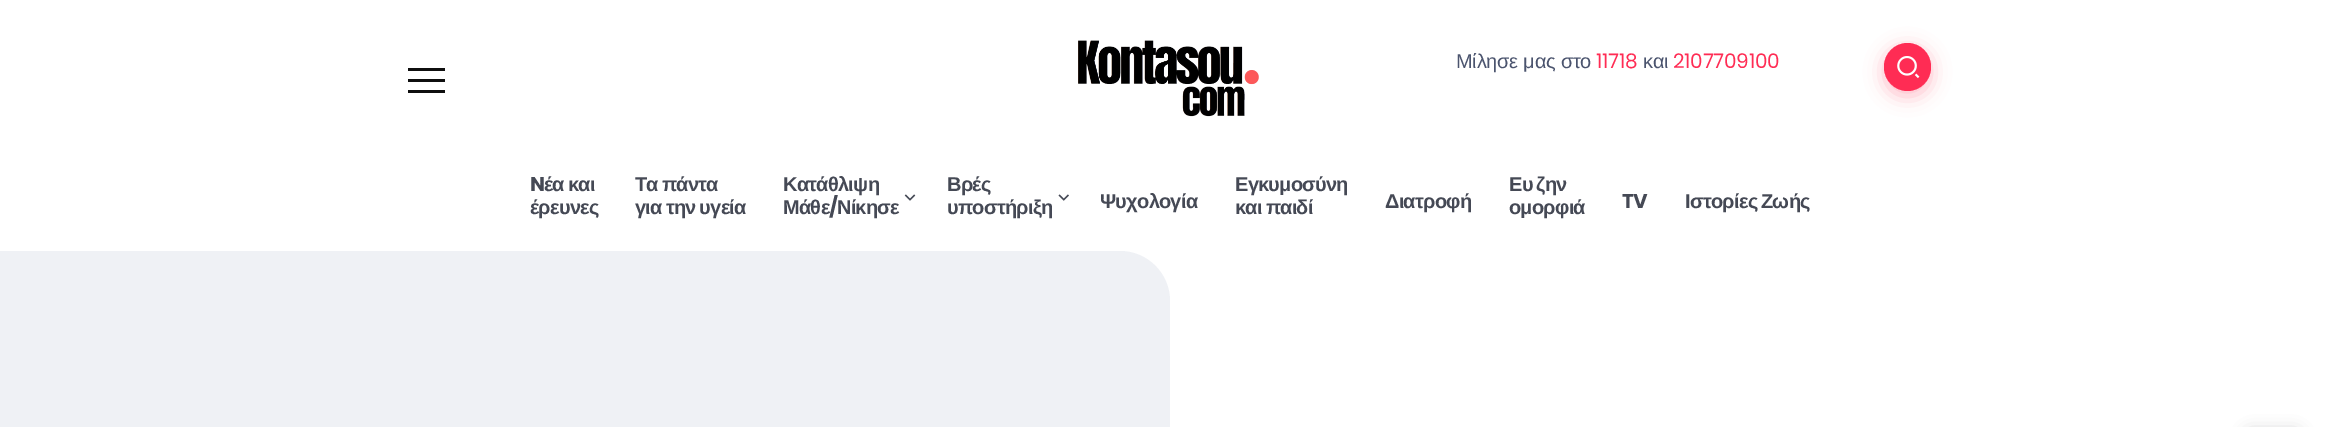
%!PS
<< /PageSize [2338 427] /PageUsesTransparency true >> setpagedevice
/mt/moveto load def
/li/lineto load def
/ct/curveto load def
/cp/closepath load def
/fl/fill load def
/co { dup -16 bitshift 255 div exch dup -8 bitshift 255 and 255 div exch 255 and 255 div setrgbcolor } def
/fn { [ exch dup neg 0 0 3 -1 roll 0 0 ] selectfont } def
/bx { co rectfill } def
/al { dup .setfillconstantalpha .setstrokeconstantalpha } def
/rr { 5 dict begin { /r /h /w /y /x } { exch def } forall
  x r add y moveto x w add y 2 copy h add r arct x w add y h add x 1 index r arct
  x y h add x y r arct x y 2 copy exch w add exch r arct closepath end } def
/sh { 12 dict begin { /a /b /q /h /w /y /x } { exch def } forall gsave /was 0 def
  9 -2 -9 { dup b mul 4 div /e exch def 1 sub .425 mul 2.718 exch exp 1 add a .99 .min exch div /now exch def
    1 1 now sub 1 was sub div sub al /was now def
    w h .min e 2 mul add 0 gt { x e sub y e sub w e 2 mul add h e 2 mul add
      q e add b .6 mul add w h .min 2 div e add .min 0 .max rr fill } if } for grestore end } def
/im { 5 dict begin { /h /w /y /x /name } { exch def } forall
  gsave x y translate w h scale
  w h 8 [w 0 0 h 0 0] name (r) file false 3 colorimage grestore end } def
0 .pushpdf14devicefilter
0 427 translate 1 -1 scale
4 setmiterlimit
0 0 2338 427 16#FFFFFF bx
(media/1.raw) 1078 40 181 77 im
16#FF2C54 co
1884 48 47 48 23.5 9.5 .33 sh
1884 43 47 48 23.5 rr fl
(media/2.raw) 1897 56 23 23 im
408 68 37 3 16#0F0F0F bx
408 79 37 3 16#0F0F0F bx
408 90 37 3 16#0F0F0F bx
(media/3.raw) 904 194 12 7 im
(media/4.raw) 1058 194 11 7 im
16#EFF1F5 co
0 251 mt 1120 251 li 1147.5 251 1170 273.5 1170 301 ct 1170 427 li 1170 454.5 1147.5 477 1120 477 ct 0 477 li cp fl
16#28292F co
2245 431 56 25 6 7.5 .24 sh
/LiberationSans-Regular 20 fn
16#4B546E co
1456 68 mt -.25 0 (Μίλησε μας στο) ashow
/Poppins-Regular 20 fn
16#FF2C54 co
1596 68 mt -.25 0 (11718) ashow
/LiberationSans-Regular 20 fn
16#4B546E co
1643 68 mt -.25 0 (και) ashow
/Poppins-Regular 20 fn
16#FF2C54 co
1673 68 mt -.25 0 (2107709100) ashow
/Poppins-Bold 20 fn
16#454955 co
530 191 mt -.75 0 (N) ashow
/LiberationSans-Bold 20 fn
544 191 mt -1 0 32 -.75 0 (έα και) awidthshow
530 214 mt -.75 0 (έρευνες) ashow
635 191 mt -1 0 32 -.75 0 (Τα πάντα) awidthshow
635 214 mt -1 0 32 -.75 0 (για την υγεία) awidthshow
783 191 mt -.75 0 (Κατάθλιψη) ashow
783 214 mt -.75 0 (Μάθε) ashow
/Poppins-Bold 20 fn
829 214 mt -.75 0 (/) ashow
/LiberationSans-Bold 20 fn
837 214 mt -.75 0 (Νίκησε) ashow
947 191 mt -.75 0 (Βρές) ashow
947 214 mt -.75 0 (υποστήριξη) ashow
1100 208 mt -.75 0 (Ψυχολογία) ashow
1235 191 mt -.75 0 (Εγκυμοσύνη) ashow
1235 214 mt -1 0 32 -.75 0 (και παιδί) awidthshow
1385 208 mt -.75 0 (Διατροφή) ashow
1509 191 mt -1 0 32 -.75 0 (Ευ ζην) awidthshow
1509 214 mt -.75 0 (ομορφιά) ashow
/Poppins-Bold 20 fn
1622 208 mt -.75 0 (TV) ashow
/LiberationSans-Bold 20 fn
1685 208 mt -1 0 32 -.75 0 (Ιστορίες Ζωής) awidthshow
.poppdf14devicefilter showpage
